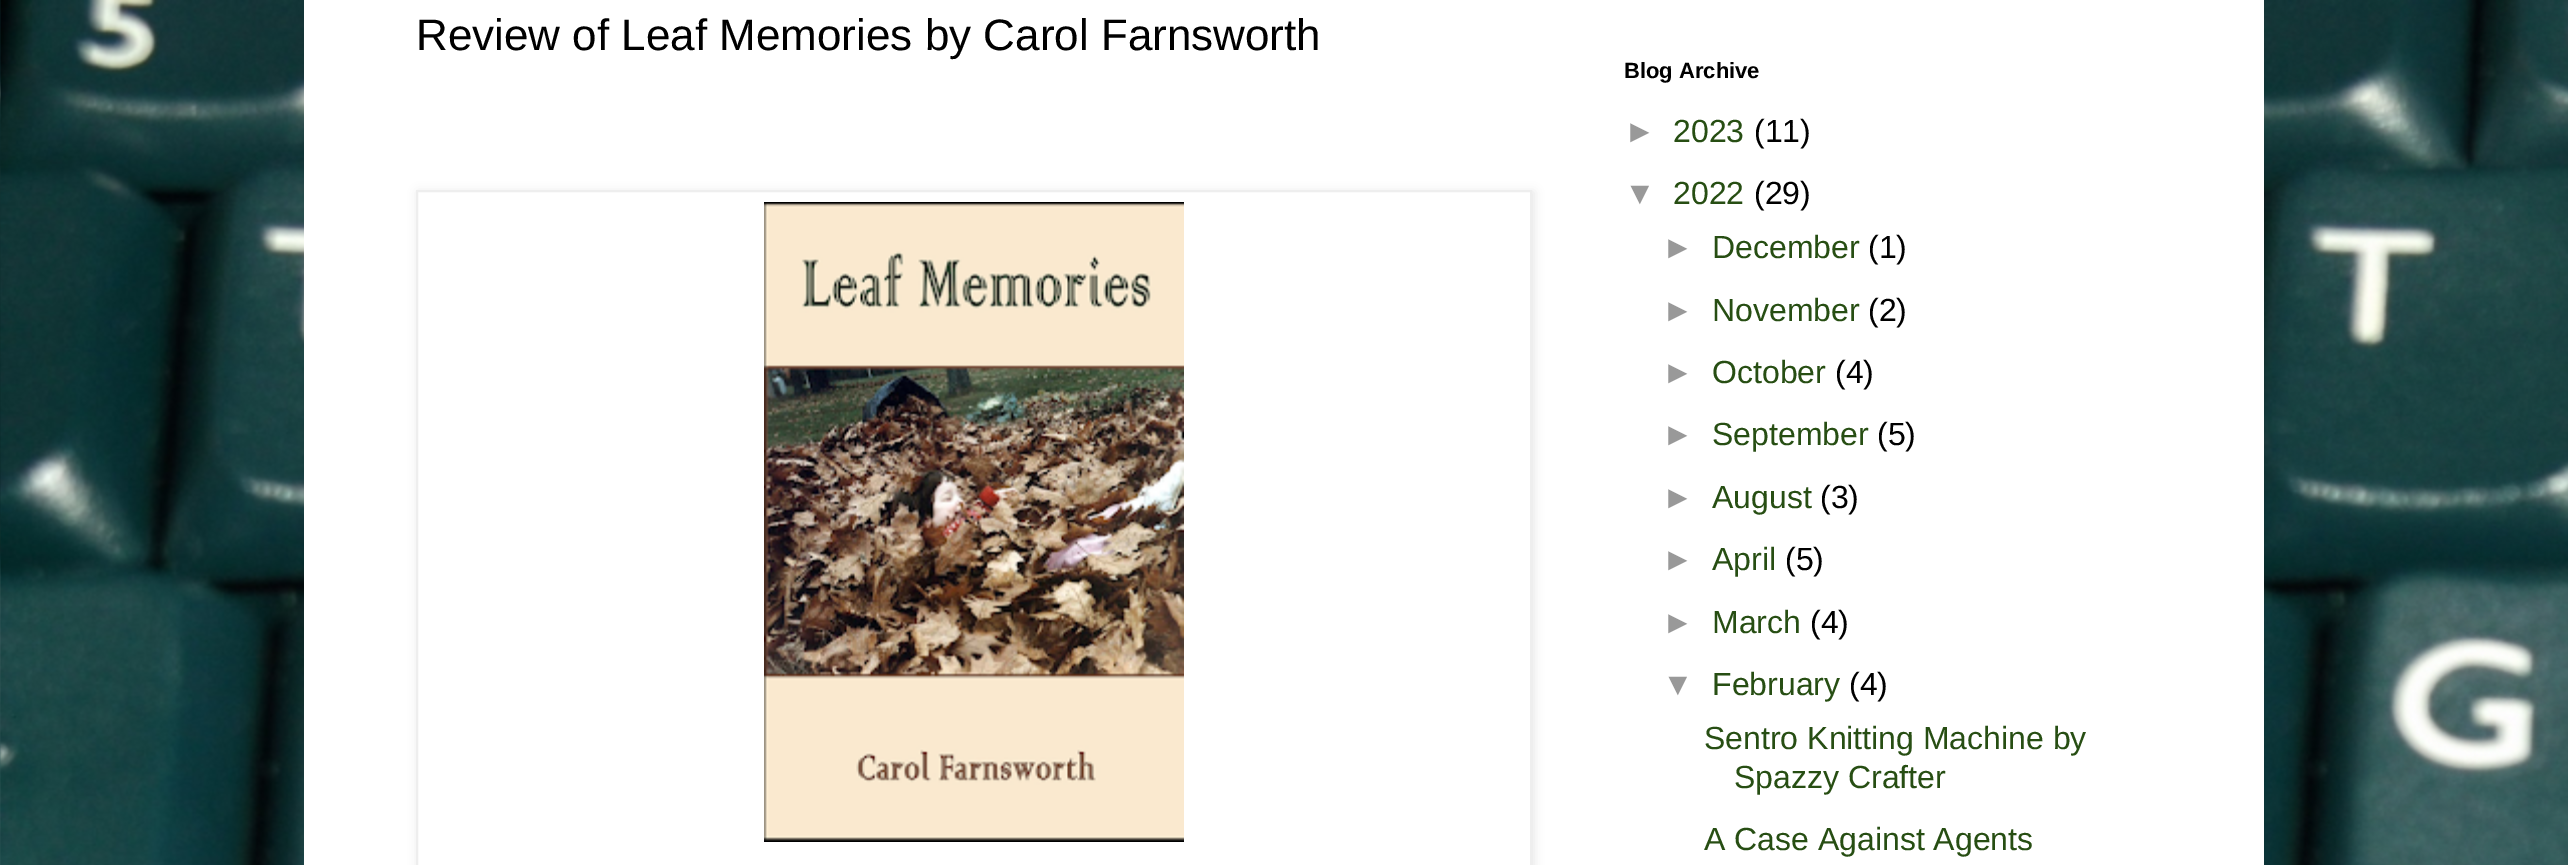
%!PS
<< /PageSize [2568 865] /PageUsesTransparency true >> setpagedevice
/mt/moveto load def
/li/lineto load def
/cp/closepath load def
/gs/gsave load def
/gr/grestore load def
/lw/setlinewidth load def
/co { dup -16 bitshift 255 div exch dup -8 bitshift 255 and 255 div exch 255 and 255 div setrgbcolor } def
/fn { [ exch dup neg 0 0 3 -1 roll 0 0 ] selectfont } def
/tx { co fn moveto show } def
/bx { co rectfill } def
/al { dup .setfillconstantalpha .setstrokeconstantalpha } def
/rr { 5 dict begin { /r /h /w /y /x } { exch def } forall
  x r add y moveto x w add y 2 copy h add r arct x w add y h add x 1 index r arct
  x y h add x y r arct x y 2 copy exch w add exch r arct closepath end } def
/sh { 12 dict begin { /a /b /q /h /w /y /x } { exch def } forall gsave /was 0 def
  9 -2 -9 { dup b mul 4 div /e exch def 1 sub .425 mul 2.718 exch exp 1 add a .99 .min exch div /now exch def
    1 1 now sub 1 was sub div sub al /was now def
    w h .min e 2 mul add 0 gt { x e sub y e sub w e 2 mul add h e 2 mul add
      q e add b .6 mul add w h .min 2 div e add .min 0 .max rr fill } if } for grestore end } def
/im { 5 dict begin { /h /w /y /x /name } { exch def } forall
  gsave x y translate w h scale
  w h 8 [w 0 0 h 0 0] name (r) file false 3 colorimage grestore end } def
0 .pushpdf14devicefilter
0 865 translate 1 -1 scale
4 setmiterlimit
0 0 2568 865 16#FFFFFF bx
(media/1.raw) 0 0 2568 865 im
304 0 1960 865 16#FFFFFF bx
gs
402 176 mt 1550 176 li 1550 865 li 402 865 li cp 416 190 mt 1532 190 li 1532 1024 li 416 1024 li cp eoclip newpath
16#000000 co
418 192 1116 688 0 5 .1 sh
gr
16#EEEEEE co
2 lw
417 191 1114 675 rectstroke
(media/2.raw) 764 202 420 640 im
(Review of Leaf Memories by Carol Farnsworth) 416 50 /LiberationSans-Regular 44 16#000000 tx
(Blog Archive) 1624 78 /LiberationSans-Bold 22 16#000000 tx
(►) 1624 142 /LiberationSans-Regular 32 16#999999 tx
(2023) 1673 142 /LiberationSans-Regular 32 16#274E13 tx
(\(11\)) 1754 142 /LiberationSans-Regular 32 16#000000 tx
(▼) 1624 204 /LiberationSans-Regular 32 16#999999 tx
(2022) 1673 204 /LiberationSans-Regular 32 16#274E13 tx
(\(29\)) 1754 204 /LiberationSans-Regular 32 16#000000 tx
(►) 1662 258 /LiberationSans-Regular 32 16#999999 tx
(December) 1712 258 /LiberationSans-Regular 32 16#274E13 tx
(\(1\)) 1868 258 /LiberationSans-Regular 32 16#000000 tx
(►) 1662 321 /LiberationSans-Regular 32 16#999999 tx
(November) 1712 321 /LiberationSans-Regular 32 16#274E13 tx
(\(2\)) 1868 321 /LiberationSans-Regular 32 16#000000 tx
(►) 1662 383 /LiberationSans-Regular 32 16#999999 tx
(October) 1712 383 /LiberationSans-Regular 32 16#274E13 tx
(\(4\)) 1835 383 /LiberationSans-Regular 32 16#000000 tx
(►) 1662 445 /LiberationSans-Regular 32 16#999999 tx
(September) 1712 445 /LiberationSans-Regular 32 16#274E13 tx
(\(5\)) 1877 445 /LiberationSans-Regular 32 16#000000 tx
(►) 1662 508 /LiberationSans-Regular 32 16#999999 tx
(August) 1712 508 /LiberationSans-Regular 32 16#274E13 tx
(\(3\)) 1820 508 /LiberationSans-Regular 32 16#000000 tx
(►) 1662 570 /LiberationSans-Regular 32 16#999999 tx
(April) 1712 570 /LiberationSans-Regular 32 16#274E13 tx
(\(5\)) 1785 570 /LiberationSans-Regular 32 16#000000 tx
(►) 1662 633 /LiberationSans-Regular 32 16#999999 tx
(March) 1712 633 /LiberationSans-Regular 32 16#274E13 tx
(\(4\)) 1810 633 /LiberationSans-Regular 32 16#000000 tx
(▼) 1662 695 /LiberationSans-Regular 32 16#999999 tx
(February) 1712 695 /LiberationSans-Regular 32 16#274E13 tx
(\(4\)) 1849 695 /LiberationSans-Regular 32 16#000000 tx
(Sentro Knitting Machine by) 1704 749 /LiberationSans-Regular 32 16#274E13 tx
(Spazzy Crafter) 1734 788 /LiberationSans-Regular 32 16#274E13 tx
(A Case Against Agents) 1704 850 /LiberationSans-Regular 32 16#274E13 tx
.poppdf14devicefilter showpage
